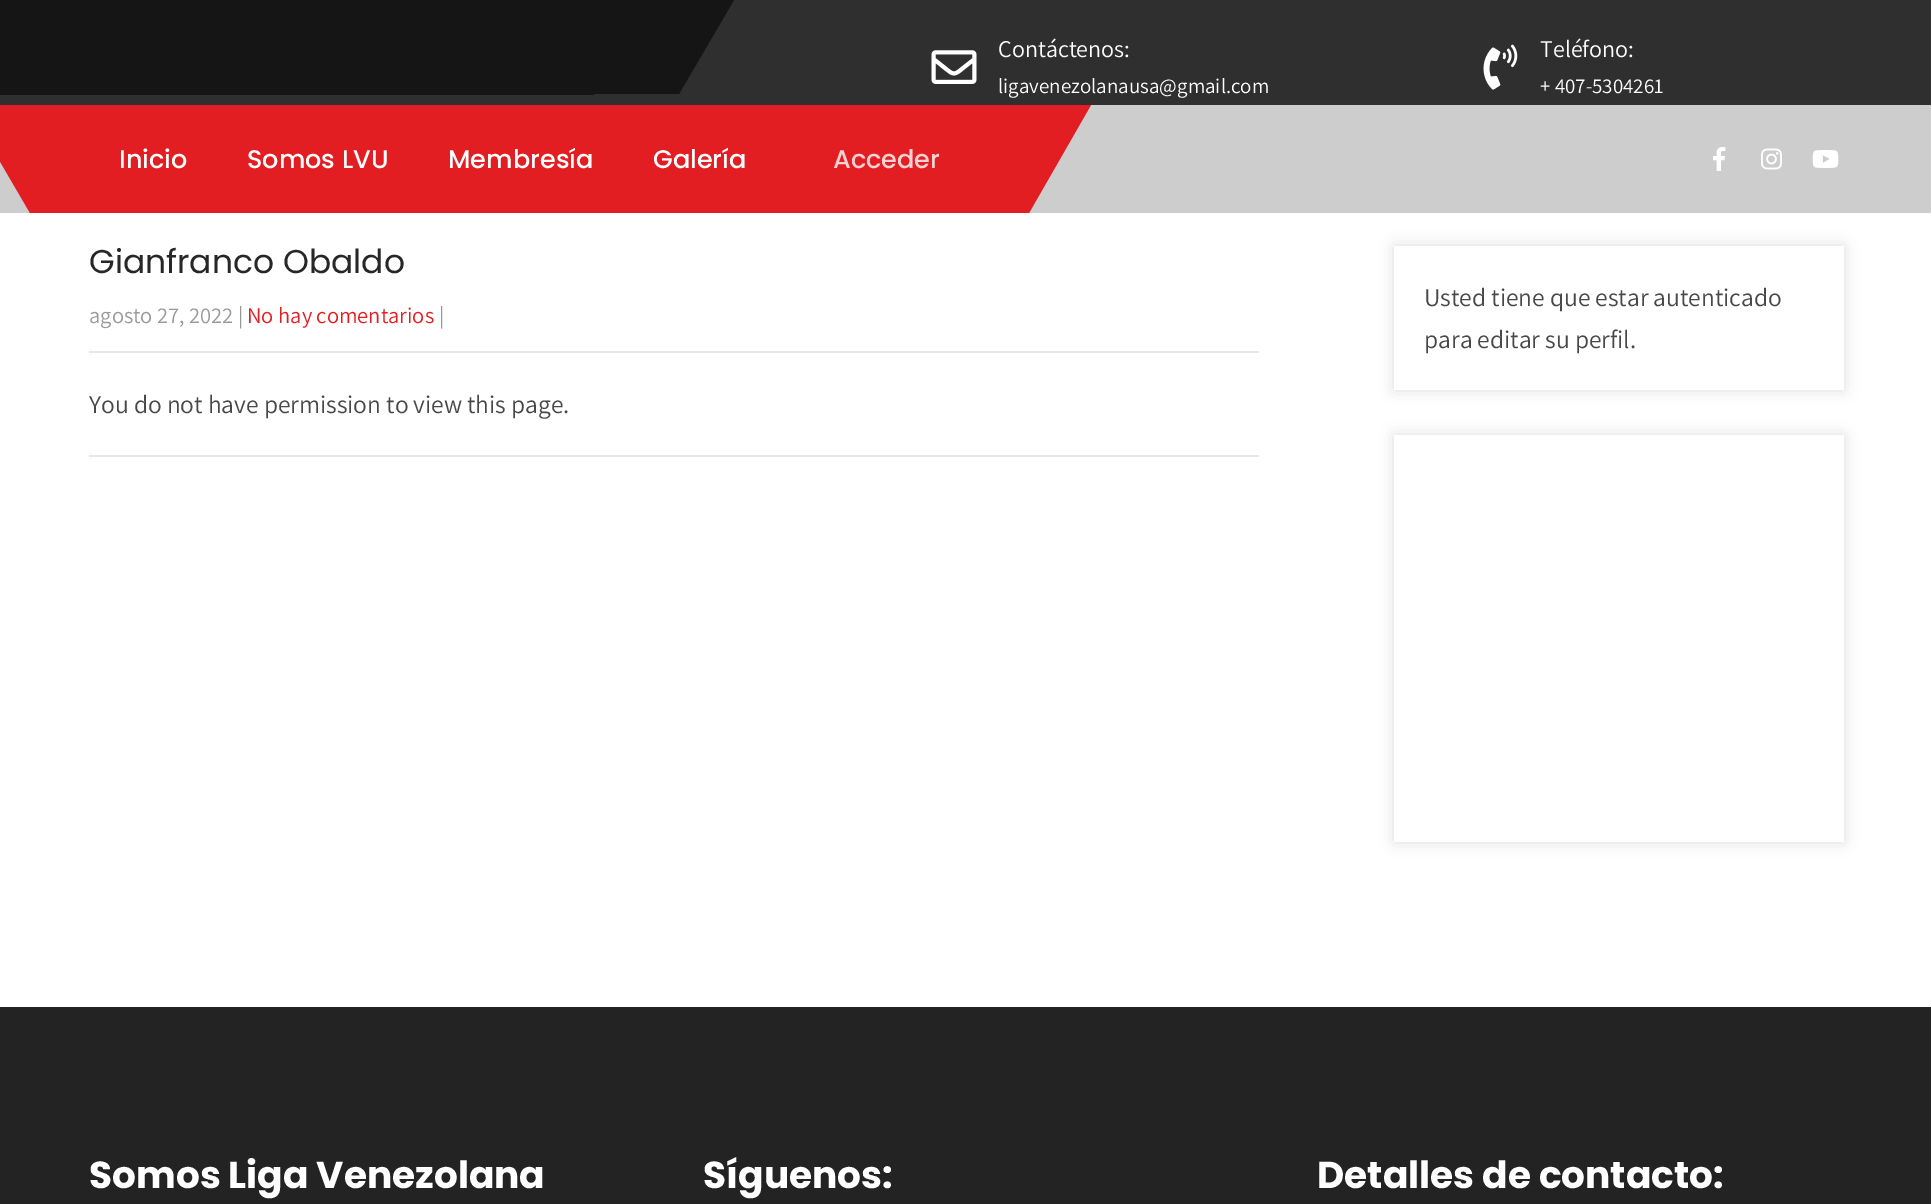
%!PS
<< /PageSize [1931 1204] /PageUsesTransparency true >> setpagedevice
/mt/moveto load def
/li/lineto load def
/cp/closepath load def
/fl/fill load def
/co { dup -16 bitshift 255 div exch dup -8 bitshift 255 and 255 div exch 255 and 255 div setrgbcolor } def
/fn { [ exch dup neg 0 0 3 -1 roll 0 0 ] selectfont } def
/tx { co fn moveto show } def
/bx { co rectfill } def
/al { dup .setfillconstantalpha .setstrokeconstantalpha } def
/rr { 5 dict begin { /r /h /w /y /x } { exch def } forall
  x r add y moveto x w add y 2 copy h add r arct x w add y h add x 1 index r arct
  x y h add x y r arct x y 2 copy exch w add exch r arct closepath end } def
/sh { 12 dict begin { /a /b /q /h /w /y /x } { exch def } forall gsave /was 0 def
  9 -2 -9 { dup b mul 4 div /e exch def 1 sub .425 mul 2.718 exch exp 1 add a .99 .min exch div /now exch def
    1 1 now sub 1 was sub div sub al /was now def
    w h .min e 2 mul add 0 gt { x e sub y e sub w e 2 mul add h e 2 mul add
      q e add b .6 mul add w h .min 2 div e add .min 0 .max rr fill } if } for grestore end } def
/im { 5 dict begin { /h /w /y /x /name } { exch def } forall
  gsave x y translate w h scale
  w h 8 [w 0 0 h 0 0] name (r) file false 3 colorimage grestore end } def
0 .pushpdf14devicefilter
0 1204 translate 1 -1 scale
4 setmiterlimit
0 0 1931 1204 16#FFFFFF bx
0 105 1931 108 16#CDCDCD bx
0 0 1931 105 16#2F2F2F bx
0 0 594 95 16#151515 bx
228 0 mt 734 0 li 679 94 li 174 94 li cp fl
(media/1.raw) 931 50 46 34 im
(media/2.raw) 1483 44 35 46 im
80 105 898 108 16#E21E22 bx
-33 105 mt 80 105 li 142 213 li 30 213 li cp fl
978 105 mt 1091 105 li 1029 213 li 916 213 li cp fl
(media/3.raw) 1713 147 13 24 im
(media/4.raw) 1761 148 21 22 im
(media/5.raw) 1812 150 27 18 im
89 351 1170 2 16#E8E8E8 bx
89 455 1170 2 16#E8E8E8 bx
16#DDDDDD co
1394 246 450 144 0 7.5 1 sh
1394 246 450 144 16#FFFFFF bx
16#DDDDDD co
1394 435 450 407 0 7.5 1 sh
1394 435 450 407 16#FFFFFF bx
0 1007 1931 197 16#232323 bx
(Contáctenos:) 998 57 /Assistant-Regular 24 16#FFFFFF tx
(ligavenezolanausa@gmail.com) 998 93 /Assistant-Regular 21 16#FFFFFF tx
(Teléfono:) 1540 57 /Assistant-Regular 24 16#FFFFFF tx
(+ 407-5304261) 1540 93 /Assistant-Regular 21 16#FFFFFF tx
(Inicio) 119 168 /Poppins-Medium 25.5 16#FFFFFF tx
(Somos LVU) 247 168 /Poppins-Medium 25.5 16#FFFFFF tx
(Membresía) 448 168 /Poppins-Medium 25.5 16#FFFFFF tx
(Galería) 653 168 /Poppins-Medium 25.5 16#FFFFFF tx
(Acceder) 833 168 /Poppins-Medium 25.5 16#F9D2D3 tx
(Gianfranco Obaldo) 89 273 /Poppins-Regular 33 16#272727 tx
(agosto 27, 2022 |) 89 323 /Assistant-Regular 22.5 16#999999 tx
(No hay comentarios) 247 323 /Assistant-Regular 22.5 16#E21E22 tx
(|) 439 323 /Assistant-Regular 22.5 16#999999 tx
(You do not have permission to view this page.) 89 413 /Assistant-Regular 25.5 16#494848 tx
(Usted tiene que estar autenticado) 1424 306 /Assistant-Regular 25.5 16#494848 tx
(para editar su perfil.) 1424 348 /Assistant-Regular 25.5 16#494848 tx
(Somos Liga Venezolana) 89 1188 /Poppins-Bold 37.5 16#FFFFFF tx
(Síguenos:) 703 1188 /Poppins-Bold 37.5 16#FFFFFF tx
(Detalles de contacto:) 1317 1188 /Poppins-Bold 37.5 16#FFFFFF tx
.poppdf14devicefilter showpage
